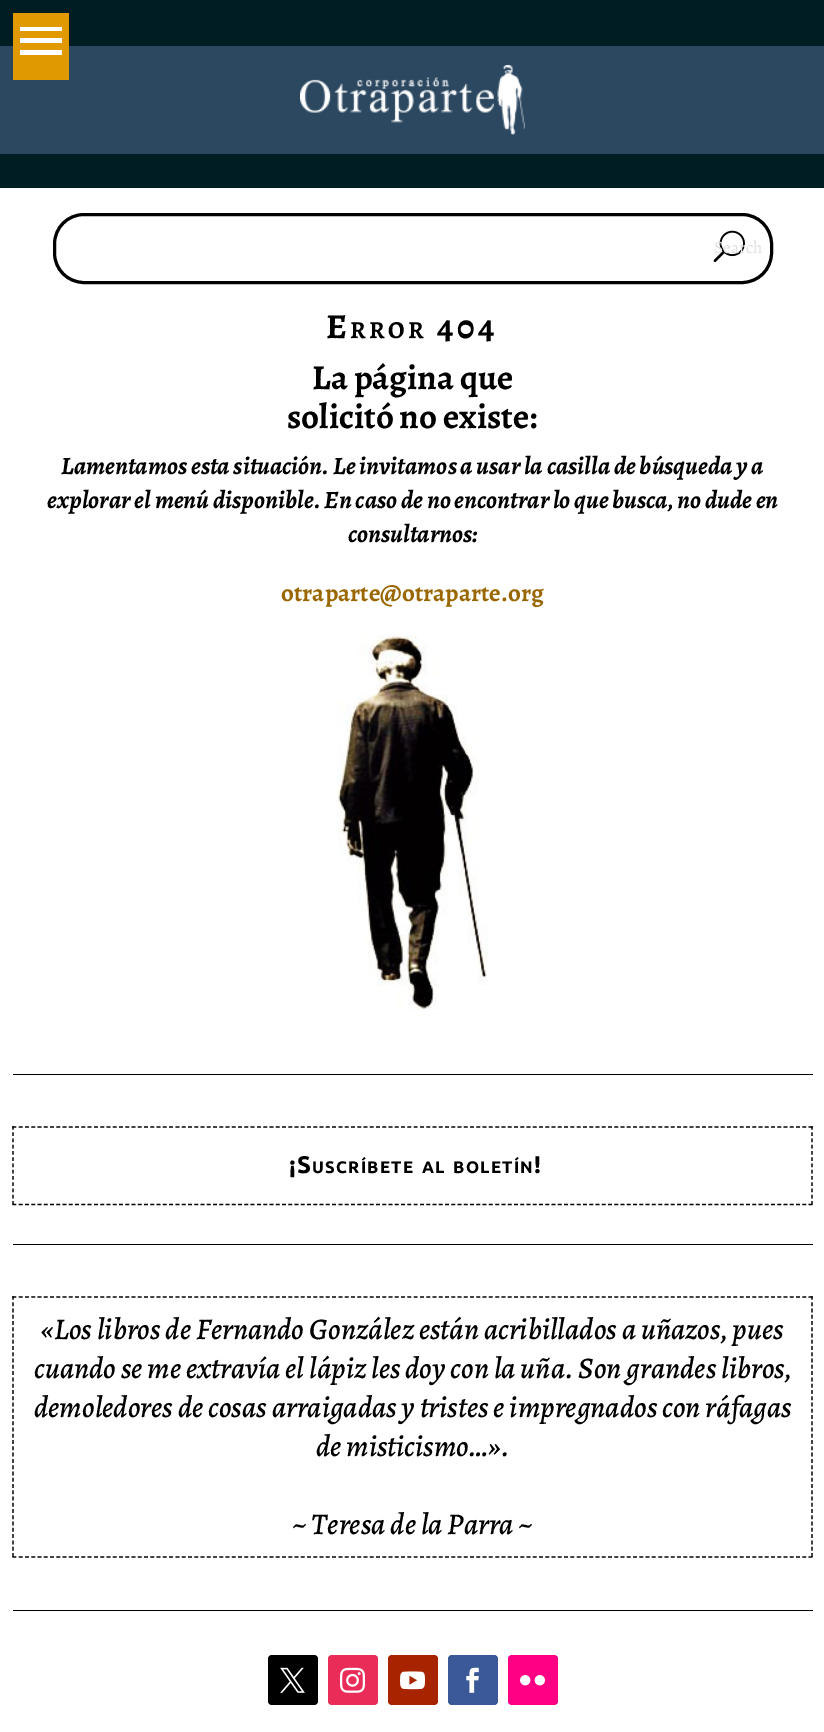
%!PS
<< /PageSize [824 1732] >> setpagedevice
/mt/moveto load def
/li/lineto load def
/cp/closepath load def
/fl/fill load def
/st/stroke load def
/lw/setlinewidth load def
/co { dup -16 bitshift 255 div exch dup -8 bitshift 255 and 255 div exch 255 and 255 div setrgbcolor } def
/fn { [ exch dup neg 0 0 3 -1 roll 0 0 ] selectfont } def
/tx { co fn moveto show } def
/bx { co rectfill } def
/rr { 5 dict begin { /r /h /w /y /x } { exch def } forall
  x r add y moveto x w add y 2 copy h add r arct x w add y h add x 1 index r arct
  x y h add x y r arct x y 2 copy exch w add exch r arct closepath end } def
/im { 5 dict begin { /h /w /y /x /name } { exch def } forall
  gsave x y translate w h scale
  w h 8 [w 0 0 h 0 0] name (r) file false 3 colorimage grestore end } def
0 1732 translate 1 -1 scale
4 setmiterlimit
0 0 824 1732 16#FFFFFF bx
0 0 824 188 16#001D24 bx
0 46 824 108 16#2C4860 bx
13 13 56 67 16#E09900 bx
16#FFFFFF co
20 55 mt 62 55 li 62 50 li 20 50 li cp 20 43 mt 62 43 li 62 38 li 20 38 li cp 20 27 mt 20 31 li 62 31 li 62 27 li cp fl
(media/1.raw) 300 65 225 70 im
16#000000 co
3 lw
54.5 214.5 717 68 29.5 rr st
(media/2.raw) 713 230 32 32 im
(media/3.raw) 337 635 151 375 im
13 1074 800 1 16#000000 bx
1.2 lw
[3.75 2.52] 0 setdash
12.5 1127 mt 812.5 1127 li st
[3.75 2.5] 0 setdash
812 1126 mt 812 1205 li st
[3.75 2.52] 0 setdash
12.5 1204.5 mt 812.5 1204.5 li st
[3.75 2.5] 0 setdash
13 1126 mt 13 1205 li st
13 1244 800 1 16#000000 bx
[3.75 2.52] 0 setdash
12.5 1297 mt 812.5 1297 li st
812 1296 mt 812 1557.5 li st
12.5 1557 mt 812.5 1557 li st
13 1296 mt 13 1557.5 li st
13 1610 800 1 16#000000 bx
268 1655 50 50 4 rr fl
(media/4.raw) 280 1667 25 26 im
16#EA2C59 co
328 1655 50 50 4 rr fl
(media/5.raw) 340 1667 25 26 im
16#A82400 co
388 1655 50 50 4 rr fl
(media/6.raw) 400 1671 25 19 im
16#3B5998 co
448 1655 50 50 4 rr fl
(media/7.raw) 466 1667 13 26 im
16#FF0084 co
508 1655 50 50 4 rr fl
(media/8.raw) 520 1675 25 11 im
(Search) 714 253 /Alegreya-Regular 17.5 16#E0E0E0 tx
/Alegreya-Bold 35 fn
16#000000 co
326 338 mt 3.5 0 (E) ashow
/Alegreya-Bold 24.5 fn
350 338 mt 3.5 0 (RROR) ashow
/Alegreya-Bold 35 fn
437 338 mt 3.5 0 (404) ashow
(La página que) 312 389 /Alegreya-Bold 35 16#000000 tx
(solicitó no existe:) 287 428 /Alegreya-Bold 35 16#000000 tx
(Lamentamos esta situación. Le invitamos a usar la casilla de búsqueda y a) 61 474 /Alegreya-BoldItalic 25 16#000000 tx
(explorar el menú disponible. En caso de no encontrar lo que busca, no dude en) 47 508 /Alegreya-BoldItalic 25 16#000000 tx
(consultarnos:) 348 542 /Alegreya-BoldItalic 25 16#000000 tx
(otraparte@otraparte.org) 281 601 /Alegreya-Bold 25 16#996600 tx
/Ubuntu-Bold 24 fn
16#000000 co
289 1173 mt 1.25 0 (¡S) ashow
/Ubuntu-Bold 16.75 fn
312 1173 mt 1.25 0 (USCRÍBETE) ashow
422 1173 mt 1.25 0 (AL) ashow
453 1173 mt 1.25 0 (BOLETÍN) ashow
/Ubuntu-Bold 24 fn
534 1173 mt 1.25 0 (!) ashow
(«Los libros de Fernando González están acribillados a uñazos, pues) 41 1339 /Alegreya-MediumItalic 30 16#000000 tx
(cuando se me extravía el lápiz les doy con la uña. Son grandes libros,) 34 1378 /Alegreya-MediumItalic 30 16#000000 tx
(demoledores de cosas arraigadas y tristes e impregnados con ráfagas) 34 1417 /Alegreya-MediumItalic 30 16#000000 tx
(de misticismo…».) 316 1456 /Alegreya-MediumItalic 30 16#000000 tx
(~ Teresa de la Parra ~) 292 1534 /Alegreya-MediumItalic 30 16#000000 tx
showpage
